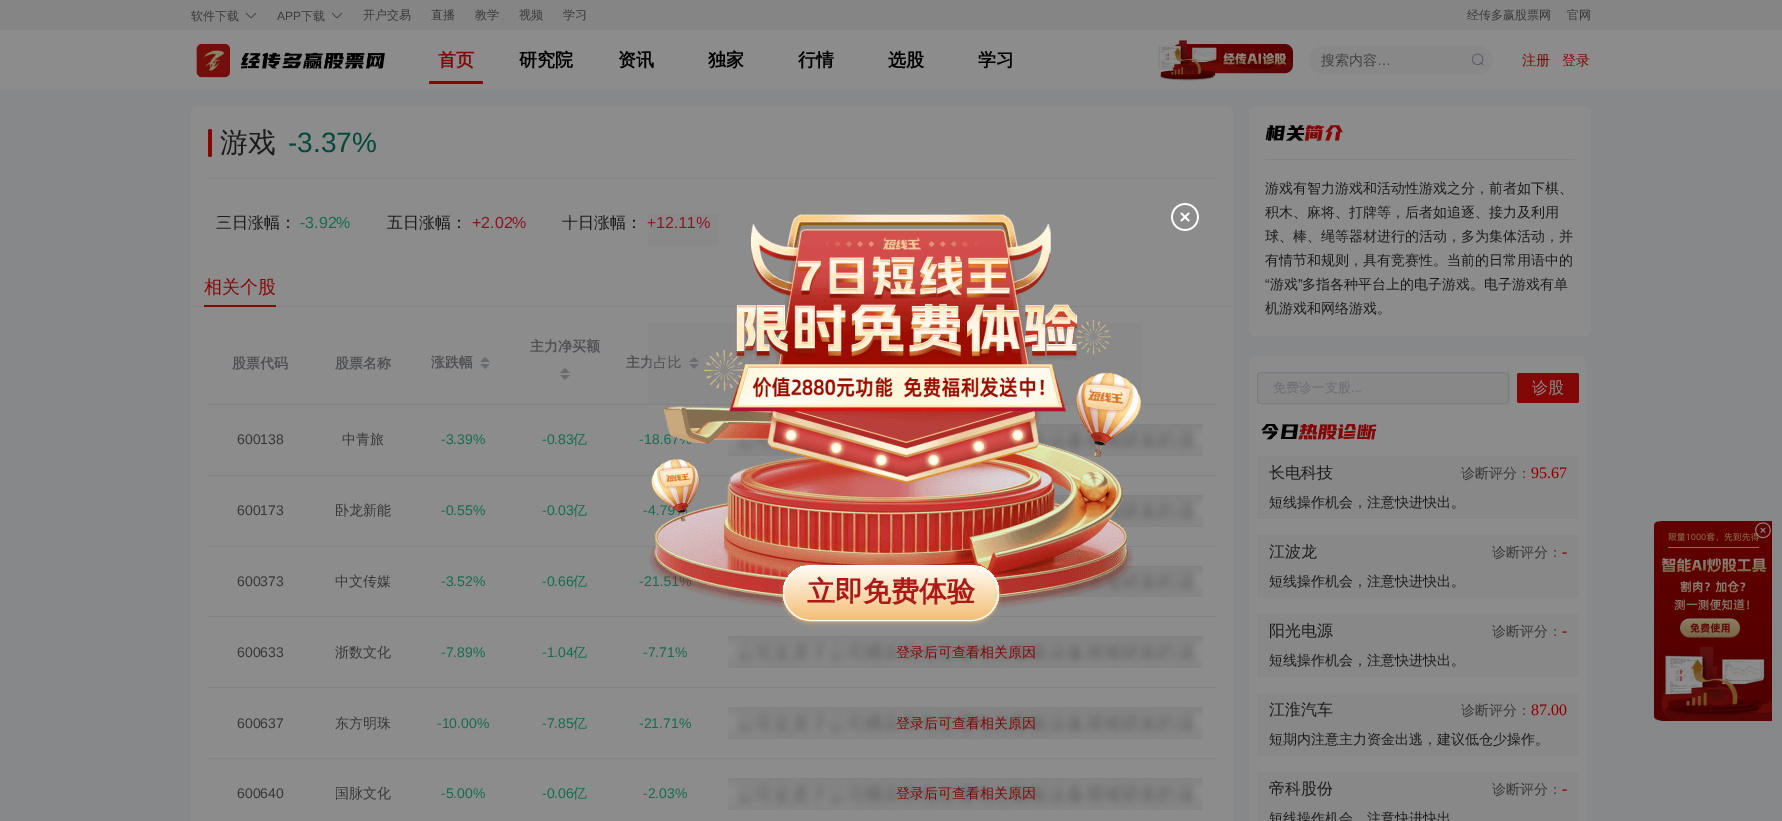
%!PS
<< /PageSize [1782 821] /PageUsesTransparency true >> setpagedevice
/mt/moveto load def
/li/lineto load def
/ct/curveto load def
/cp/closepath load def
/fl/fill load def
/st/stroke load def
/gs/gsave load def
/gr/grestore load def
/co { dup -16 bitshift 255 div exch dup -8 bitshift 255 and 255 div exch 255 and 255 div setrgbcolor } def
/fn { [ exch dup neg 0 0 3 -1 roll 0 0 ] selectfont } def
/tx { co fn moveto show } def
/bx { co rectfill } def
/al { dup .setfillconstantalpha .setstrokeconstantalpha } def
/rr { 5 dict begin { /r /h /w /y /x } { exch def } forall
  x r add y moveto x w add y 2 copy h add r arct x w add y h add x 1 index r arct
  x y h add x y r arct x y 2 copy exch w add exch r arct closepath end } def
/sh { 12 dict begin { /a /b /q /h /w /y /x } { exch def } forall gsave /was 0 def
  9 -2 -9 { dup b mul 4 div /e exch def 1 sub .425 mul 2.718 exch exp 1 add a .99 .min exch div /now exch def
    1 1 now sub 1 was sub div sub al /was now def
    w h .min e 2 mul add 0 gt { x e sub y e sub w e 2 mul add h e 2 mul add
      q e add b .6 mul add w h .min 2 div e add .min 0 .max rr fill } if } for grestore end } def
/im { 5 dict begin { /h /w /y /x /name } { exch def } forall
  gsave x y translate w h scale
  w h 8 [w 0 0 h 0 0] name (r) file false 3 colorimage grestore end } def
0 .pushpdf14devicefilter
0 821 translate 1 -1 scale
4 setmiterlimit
0 0 1782 821 16#87888A bx
0 0 1782 30 16#858585 bx
(media/1.raw) 245 12 12 7 im
(media/1.raw) 331 12 12 7 im
0 30 1782 60 16#8C8C8C bx
(media/2.raw) 196 43 189 35 im
16#820808 co
429 81 54 3 1 rr fl
(media/3.raw) 1158 40 135 41 im
16#888888 co
1309 46 184 28 14 rr fl
(media/4.raw) 1471 53 13 13 im
16#8C8C8C co
199 106 mt 1225 106 li 1229.5 106 1233 109.5 1233 114 ct 1233 821 li 191 821 li 191 114 li 191 109.5 194.5 106 199 106 ct cp fl
208 178 1008 1 16#838383 bx
16#820808 co
208 129 4 28 2 rr fl
192 306 1040 1 16#838383 bx
204 305 72 2 16#820808 bx
16#6A6C70 co
570 373 mt 560 373 li 565 368 li cp 560 375 mt 570 375 li 565 380 li cp fl
208 404 1008 1 16#818387 bx
16#6A6C70 co
490 362 mt 480 362 li 485 357 li cp 480 364 mt 490 364 li 485 369 li cp fl
699 362 mt 689 362 li 694 357 li cp 689 364 mt 699 364 li 694 369 li cp fl
208 475 1008 1 16#818387 bx
(media/5.raw) 728 424 475 32 im
208 546 448 1 16#818387 bx
1126 546 90 1 16#818387 bx
(media/5.raw) 728 495 475 32 im
208 616 1008 1 16#818387 bx
(media/6.raw) 728 566 475 31 im
208 687 1008 1 16#818387 bx
(media/5.raw) 728 636 475 32 im
208 758 1008 1 16#818387 bx
(media/5.raw) 728 707 475 32 im
(media/5.raw) 728 778 475 32 im
16#8C8C8C co
1249 106 342 230 8 rr fl
1265 159 310 1 16#838383 bx
(media/7.raw) 1265 125 40 16 im
(media/8.raw) 1304 125 39 16 im
16#8C8C8C co
1257 356 mt 1579 356 li 1583.5 356 1587 359.5 1587 364 ct 1587 821 li 1249 821 li 1249 364 li 1249 359.5 1252.5 356 1257 356 ct cp fl
16#888888 co
1257.5 372.5 251 31 3.5 rr gs fl gr
16#797B7F co
st
16#820808 co
1517 373 62 30 2 rr fl
(media/9.raw) 1261 424 38 16 im
(media/10.raw) 1298 424 79 16 im
1257 456 322 63 16#888888 bx
1257 535 322 63 16#888888 bx
1257 614 322 63 16#888888 bx
1257 693 322 63 16#888888 bx
1257 772 322 49 16#888888 bx
(media/11.raw) 1654 521 118 200 im
(media/12.raw) 1755 522 16 17 im
(media/14.raw) 1171 203 28 28 im
(软件下载) 191 20 /WenQuanYiZenHei-Medium 12 16#383838 tx
(APP) 277 20 /LiberationSans-Regular 12 16#383838 tx
(下载) 301 20 /WenQuanYiZenHei-Medium 12 16#383838 tx
(开户交易) 363 19 /WenQuanYiZenHei-Medium 12 16#383838 tx
(直播) 431 19 /WenQuanYiZenHei-Medium 12 16#383838 tx
(教学) 475 19 /WenQuanYiZenHei-Medium 12 16#383838 tx
(视频) 519 19 /WenQuanYiZenHei-Medium 12 16#383838 tx
(学习) 563 19 /WenQuanYiZenHei-Medium 12 16#383838 tx
(经传多赢股票网) 1467 19 /WenQuanYiZenHei-Medium 12 16#383838 tx
(官网) 1567 19 /WenQuanYiZenHei-Medium 12 16#383838 tx
(首页) 438 66 /WenQuanYiZenHei-Bold 18 16#820808 tx
(研究院) 519 66 /WenQuanYiZenHei-Bold 18 16#000000 tx
(资讯) 618 66 /WenQuanYiZenHei-Bold 18 16#000000 tx
(独家) 708 66 /WenQuanYiZenHei-Bold 18 16#000000 tx
(行情) 798 66 /WenQuanYiZenHei-Bold 18 16#000000 tx
(选股) 888 66 /WenQuanYiZenHei-Bold 18 16#000000 tx
(学习) 978 66 /WenQuanYiZenHei-Bold 18 16#000000 tx
(搜索内容) 1321 65 /WenQuanYiZenHei-Medium 14 16#404040 tx
(…) 1377 65 /LiberationSans-Regular 14 16#404040 tx
(注册) 1522 65 /WenQuanYiZenHei-Medium 14 16#820808 tx
(登录) 1562 65 /WenQuanYiZenHei-Medium 14 16#820808 tx
(游戏) 220 152 /WenQuanYiZenHei-Medium 28 16#1C1C1C tx
(-3.37%) 288 152 /LiberationSans-Regular 28 16#024A3A tx
(三日涨幅：) 216 228 /WenQuanYiZenHei-Medium 16 16#1C1C1C tx
(-3.92%) 300 228 /LiberationSans-Regular 16 16#146D4F tx
(五日涨幅：) 387 228 /WenQuanYiZenHei-Medium 16 16#1C1C1C tx
(+2.02%) 472 228 /LiberationSans-Regular 16 16#8B1523 tx
(十日涨幅：) 562 228 /WenQuanYiZenHei-Medium 16 16#1C1C1C tx
(+12.11%) 647 228 /LiberationSans-Regular 16 16#8B1523 tx
(相关个股) 204 293 /WenQuanYiZenHei-Medium 18 16#820808 tx
(主力净买额) 530 351 /WenQuanYiZenHei-Bold 14 16#4F5154 tx
(股票代码) 232 368 /WenQuanYiZenHei-Bold 14 16#4F5154 tx
(股票名称) 335 368 /WenQuanYiZenHei-Bold 14 16#4F5154 tx
(涨跌幅) 431 367 /WenQuanYiZenHei-Bold 14 16#4F5154 tx
(主力占比) 626 367 /WenQuanYiZenHei-Bold 14 16#4F5154 tx
(600138) 237 444 /LiberationSans-Regular 14 16#383838 tx
(中青旅) 342 444 /WenQuanYiZenHei-Medium 14 16#383838 tx
(-3.39%) 441 444 /LiberationSans-Regular 14 16#146D4F tx
(-0.83) 542 444 /LiberationSans-Regular 14 16#146D4F tx
(亿) 573 444 /WenQuanYiZenHei-Medium 14 16#146D4F tx
(-18.67) 639 444 /LiberationSans-Regular 14 16#146D4F tx
(600173) 237 515 /LiberationSans-Regular 14 16#383838 tx
(卧龙新能) 335 515 /WenQuanYiZenHei-Medium 14 16#383838 tx
(-0.55%) 441 515 /LiberationSans-Regular 14 16#146D4F tx
(-0.03) 542 515 /LiberationSans-Regular 14 16#146D4F tx
(亿) 573 515 /WenQuanYiZenHei-Medium 14 16#146D4F tx
(-4.79) 643 515 /LiberationSans-Regular 14 16#146D4F tx
(600373) 237 586 /LiberationSans-Regular 14 16#383838 tx
(中文传媒) 335 586 /WenQuanYiZenHei-Medium 14 16#383838 tx
(-3.52%) 441 586 /LiberationSans-Regular 14 16#146D4F tx
(-0.66) 542 586 /LiberationSans-Regular 14 16#146D4F tx
(亿) 573 586 /WenQuanYiZenHei-Medium 14 16#146D4F tx
(-21.51%) 639 586 /LiberationSans-Regular 14 16#146D4F tx
(600633) 237 657 /LiberationSans-Regular 14 16#383838 tx
(浙数文化) 335 657 /WenQuanYiZenHei-Medium 14 16#383838 tx
(-7.89%) 441 657 /LiberationSans-Regular 14 16#146D4F tx
(-1.04) 542 657 /LiberationSans-Regular 14 16#146D4F tx
(亿) 573 657 /WenQuanYiZenHei-Medium 14 16#146D4F tx
(-7.71%) 643 657 /LiberationSans-Regular 14 16#146D4F tx
(登录后可查看相关原因) 896 657 /WenQuanYiZenHei-Medium 14 16#820808 tx
(600637) 237 728 /LiberationSans-Regular 14 16#383838 tx
(东方明珠) 335 728 /WenQuanYiZenHei-Medium 14 16#383838 tx
(-10.00%) 437 728 /LiberationSans-Regular 14 16#146D4F tx
(-7.85) 542 728 /LiberationSans-Regular 14 16#146D4F tx
(亿) 573 728 /WenQuanYiZenHei-Medium 14 16#146D4F tx
(-21.71%) 639 728 /LiberationSans-Regular 14 16#146D4F tx
(登录后可查看相关原因) 896 728 /WenQuanYiZenHei-Medium 14 16#820808 tx
(600640) 237 798 /LiberationSans-Regular 14 16#383838 tx
(国脉文化) 335 798 /WenQuanYiZenHei-Medium 14 16#383838 tx
(-5.00%) 441 798 /LiberationSans-Regular 14 16#146D4F tx
(-0.06) 542 798 /LiberationSans-Regular 14 16#146D4F tx
(亿) 573 798 /WenQuanYiZenHei-Medium 14 16#146D4F tx
(-2.03%) 643 798 /LiberationSans-Regular 14 16#146D4F tx
(登录后可查看相关原因) 896 798 /WenQuanYiZenHei-Medium 14 16#820808 tx
(游戏有智力游戏和活动性游戏之分，前者如下棋、) 1265 193 /WenQuanYiZenHei-Medium 14 16#1C1C1C tx
(积木、麻将、打牌等，后者如追逐、接力及利用) 1265 217 /WenQuanYiZenHei-Medium 14 16#1C1C1C tx
(球、棒、绳等器材进行的活动，多为集体活动，并) 1265 241 /WenQuanYiZenHei-Medium 14 16#1C1C1C tx
(有情节和规则，具有竞赛性。当前的日常用语中的) 1265 265 /WenQuanYiZenHei-Medium 14 16#1C1C1C tx
(“) 1265 289 /LiberationSans-Regular 14 16#1C1C1C tx
(游戏) 1270 289 /WenQuanYiZenHei-Medium 14 16#1C1C1C tx
(”) 1298 289 /LiberationSans-Regular 14 16#1C1C1C tx
(多指各种平台上的电子游戏。电子游戏有单) 1302 289 /WenQuanYiZenHei-Medium 14 16#1C1C1C tx
(机游戏和网络游戏。) 1265 313 /WenQuanYiZenHei-Medium 14 16#1C1C1C tx
(免费诊一支股) 1273 392 /WenQuanYiZenHei-Medium 13 16#6A6C70 tx
(...) 1351 392 /LiberationSans-Regular 13 16#6A6C70 tx
(诊股) 1532 393 /WenQuanYiZenHei-Medium 16 16#8C8C8C tx
(长电科技) 1269 478 /WenQuanYiZenHei-Medium 16 16#1C1C1C tx
(诊断评分：) 1461 478 /WenQuanYiZenHei-Medium 14 16#383838 tx
(95.67) 1531 478 /LiberationSerif-Regular 16 16#8C0000 tx
(短线操作机会，注意快进快出。) 1269 507 /WenQuanYiZenHei-Medium 14 16#1C1C1C tx
(江波龙) 1269 557 /WenQuanYiZenHei-Medium 16 16#1C1C1C tx
(诊断评分：) 1492 557 /WenQuanYiZenHei-Medium 14 16#383838 tx
(-) 1562 557 /LiberationSerif-Regular 16 16#8C0000 tx
(短线操作机会，注意快进快出。) 1269 586 /WenQuanYiZenHei-Medium 14 16#1C1C1C tx
(阳光电源) 1269 636 /WenQuanYiZenHei-Medium 16 16#1C1C1C tx
(诊断评分：) 1492 636 /WenQuanYiZenHei-Medium 14 16#383838 tx
(-) 1562 636 /LiberationSerif-Regular 16 16#8C0000 tx
(短线操作机会，注意快进快出。) 1269 665 /WenQuanYiZenHei-Medium 14 16#1C1C1C tx
(江淮汽车) 1269 715 /WenQuanYiZenHei-Medium 16 16#1C1C1C tx
(诊断评分：) 1461 715 /WenQuanYiZenHei-Medium 14 16#383838 tx
(87.00) 1531 715 /LiberationSerif-Regular 16 16#8C0000 tx
(短期内注意主力资金出逃，建议低仓少操作。) 1269 744 /WenQuanYiZenHei-Medium 14 16#1C1C1C tx
(帝科股份) 1269 794 /WenQuanYiZenHei-Medium 16 16#1C1C1C tx
(诊断评分：) 1492 794 /WenQuanYiZenHei-Medium 14 16#383838 tx
(-) 1562 794 /LiberationSerif-Regular 16 16#8C0000 tx
(短线操作机会，注意快进快出) 1269 823 /WenQuanYiZenHei-Medium 14 16#1C1C1C tx
(media/13.raw) 648 214 494 395 im
16#FFC468 co
783 567 216 56 28 2 .5 sh
gs
783 565 216 56 28 rr clip newpath
gs 783 566 mt 999 566 li 999 620 li 783 620 li cp clip newpath
<< /ShadingType 2 /ColorSpace /DeviceRGB /Coords [891 566 891 620] /Extend [true true] /Function << /FunctionType 2 /Domain [0 1] /C0 [1 .988 .965] /C1 [.957 .745 .455] /N 1 >> >> shfill gr
gr
16#FFFFFF co
783.5 565.5 215 55 27.5 rr st
(立即免费体验) 807 601 /WenQuanYiZenHei-Bold 28 16#AD1917 tx
.poppdf14devicefilter showpage
